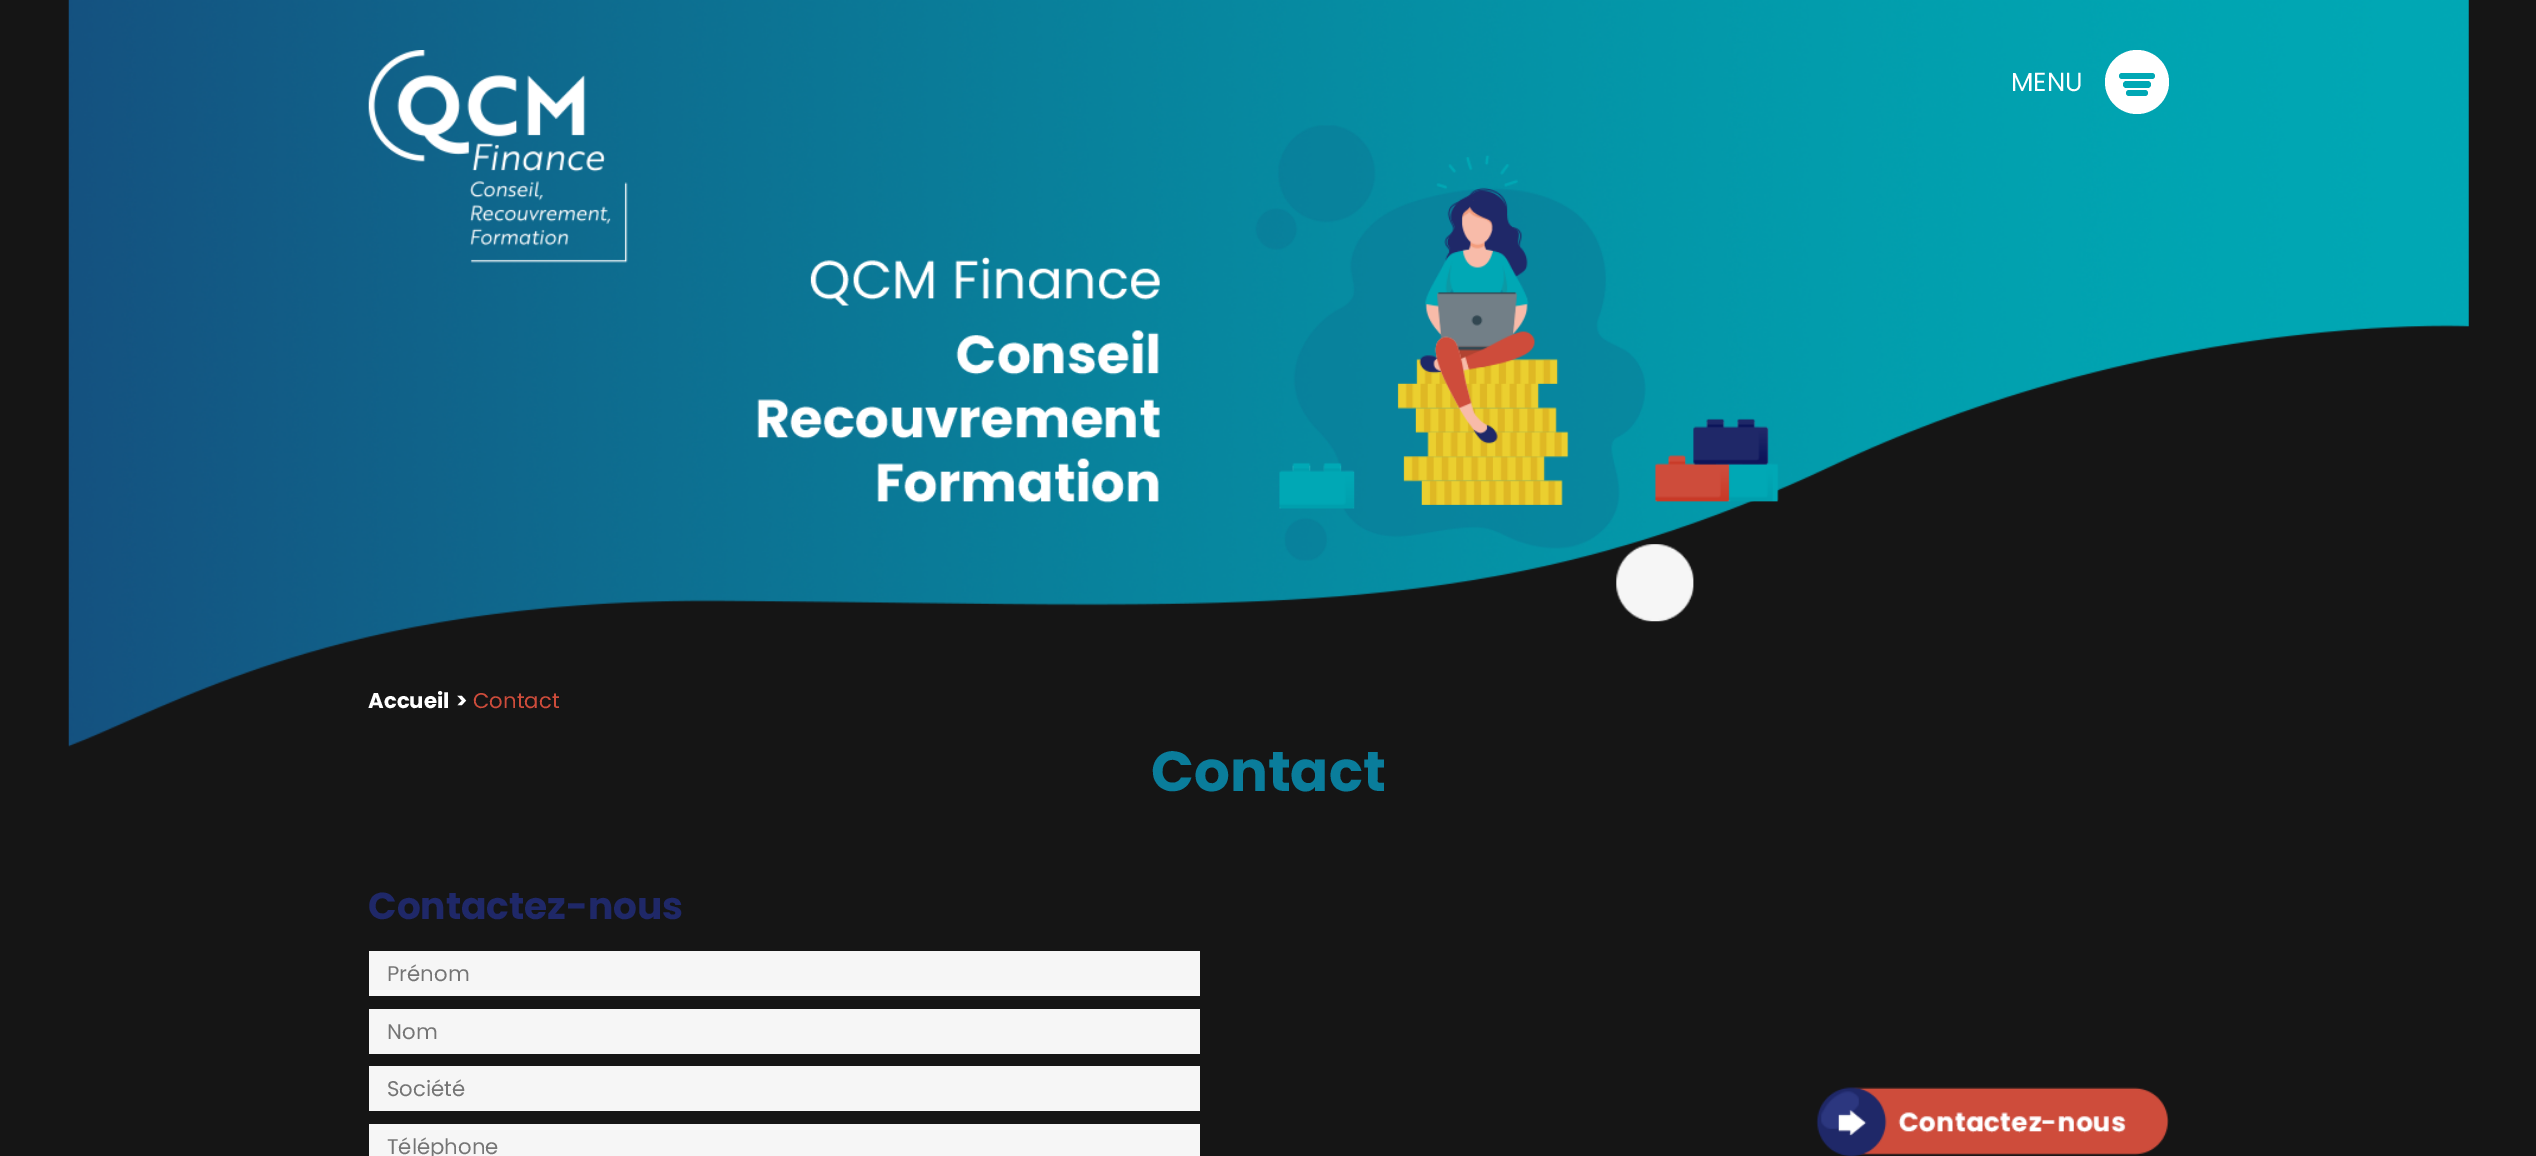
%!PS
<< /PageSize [2536 1156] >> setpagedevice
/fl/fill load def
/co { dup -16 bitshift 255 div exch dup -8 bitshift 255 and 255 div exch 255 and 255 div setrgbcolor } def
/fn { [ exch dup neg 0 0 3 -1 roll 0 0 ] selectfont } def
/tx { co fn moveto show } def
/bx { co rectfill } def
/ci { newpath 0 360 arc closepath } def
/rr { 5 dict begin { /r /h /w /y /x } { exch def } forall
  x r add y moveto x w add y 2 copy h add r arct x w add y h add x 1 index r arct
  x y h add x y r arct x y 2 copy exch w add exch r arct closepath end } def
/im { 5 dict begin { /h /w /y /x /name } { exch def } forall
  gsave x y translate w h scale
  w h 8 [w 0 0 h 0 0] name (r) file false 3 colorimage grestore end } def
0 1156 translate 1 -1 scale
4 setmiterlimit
0 0 2536 1156 16#151515 bx
(media/1.raw) 68 0 2401 747 im
(media/2.raw) 757 125 1022 497 im
(media/3.raw) 368 50 260 213 im
16#FFFFFF co
2137 82 32 ci fl
16#00A8B5 co
2119 73 36 6 3 rr fl
2123 81 28 7 3.5 rr fl
2126 90 22 6 3 rr fl
369 951 831 45 16#F6F6F6 bx
369 1009 831 45 16#F6F6F6 bx
369 1066 831 45 16#F6F6F6 bx
369 1124 831 32 16#F6F6F6 bx
(media/4.raw) 1816 1087 353 69 im
(MENU) 2011 91 /Poppins-Regular 26 16#FFFFFF tx
(Accueil) 368 708 /Poppins-Bold 21.25 16#FFFFFF tx
(>) 456 708 /Poppins-Bold 21.25 16#FFFFFF tx
(Contact) 473 708 /Poppins-Regular 21.25 16#CE4C3B tx
(Contact) 1151 791 /Poppins-Bold 56.25 16#0A7D9B tx
(Contactez-nous) 368 919 /Poppins-Bold 37.5 16#1F2868 tx
(Prénom) 387 981 /Poppins-Regular 21.25 16#757575 tx
(Nom) 387 1039 /Poppins-Regular 21.25 16#757575 tx
(Société) 387 1096 /Poppins-Regular 21.25 16#757575 tx
(Téléphone) 387 1154 /Poppins-Regular 21.25 16#757575 tx
showpage
